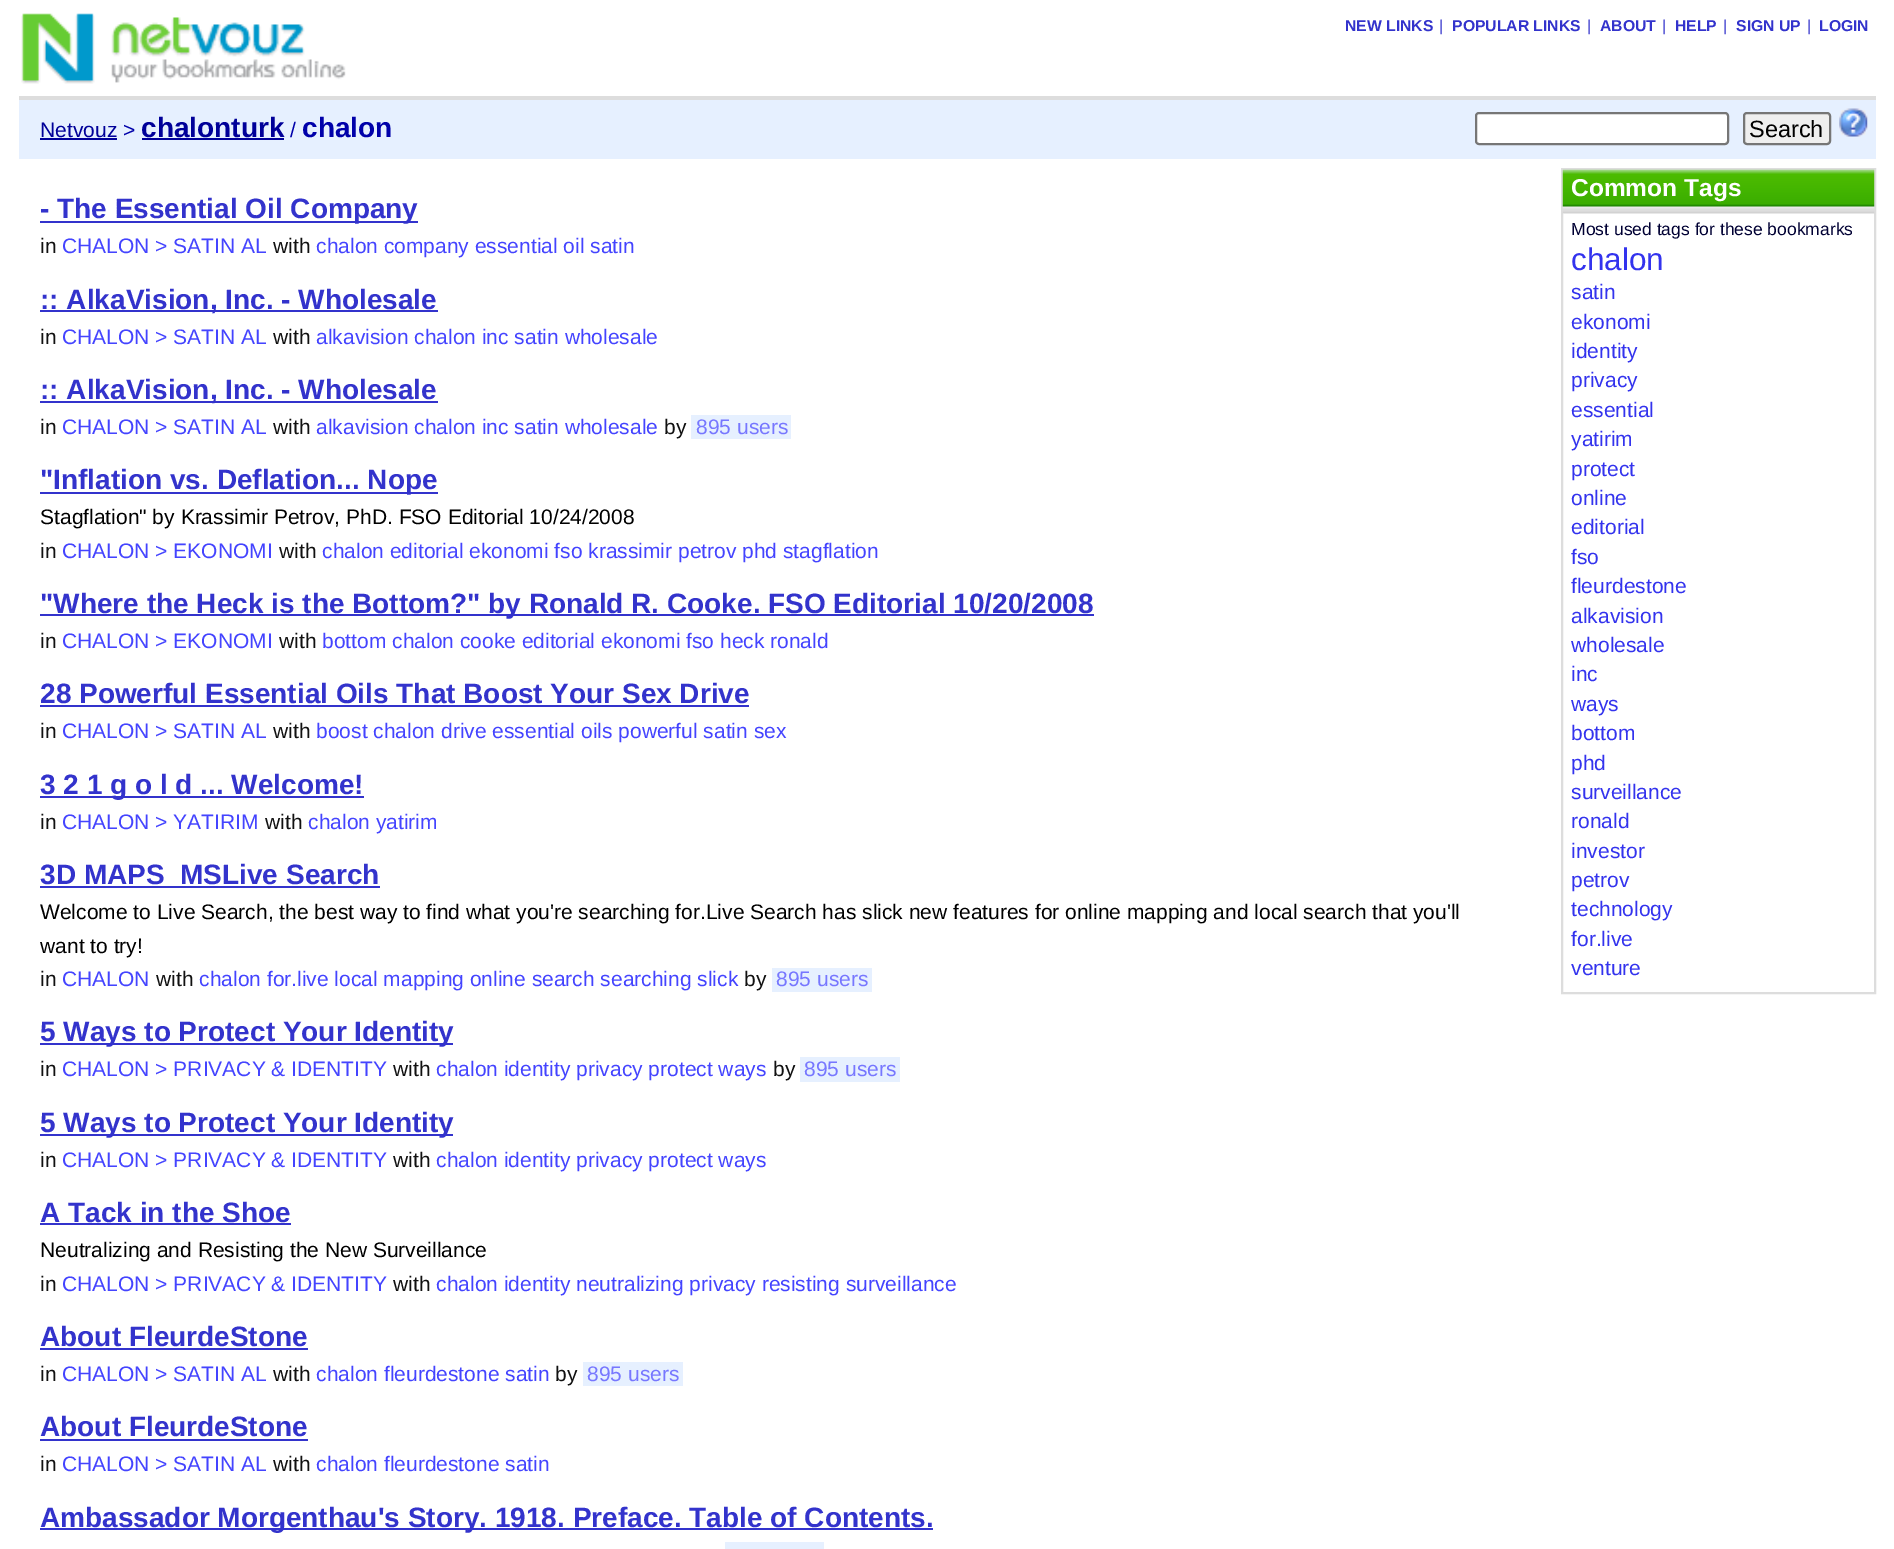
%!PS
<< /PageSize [1894 1549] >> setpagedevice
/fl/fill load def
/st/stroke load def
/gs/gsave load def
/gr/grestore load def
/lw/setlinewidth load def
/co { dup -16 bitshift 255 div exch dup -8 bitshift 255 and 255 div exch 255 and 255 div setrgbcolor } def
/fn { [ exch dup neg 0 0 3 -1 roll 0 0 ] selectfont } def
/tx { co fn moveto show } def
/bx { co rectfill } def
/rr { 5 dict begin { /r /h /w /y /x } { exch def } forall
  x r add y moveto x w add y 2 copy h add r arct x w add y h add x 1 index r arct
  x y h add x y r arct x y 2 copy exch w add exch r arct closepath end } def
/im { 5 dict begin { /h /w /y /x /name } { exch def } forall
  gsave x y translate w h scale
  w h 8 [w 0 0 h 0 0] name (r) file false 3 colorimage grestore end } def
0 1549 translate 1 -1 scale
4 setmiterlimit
0 0 1894 1549 16#FFFFFF bx
19 96 1857 4 16#DDDDDD bx
(media/1.raw) 21 13 325 71 im
19 100 1857 59 16#E6F0FF bx
40 138 77 2 16#000099 bx
142 138 142 2 16#000099 bx
16#FFFFFF co
1476 113 252 31 3 rr gs fl gr
16#767676 co
2 lw
st
16#EFEFEF co
1744 113 86 31 3 rr gs fl gr
16#767676 co
st
(media/2.raw) 1839 108 29 29 im
40 221 378 2 16#3333CC bx
40 310 398 2 16#3333CC bx
40 401 398 2 16#3333CC bx
691 415 100 24 16#E6F0FF bx
40 492 398 2 16#3333CC bx
40 614 1054 2 16#3333CC bx
40 705 709 2 16#3333CC bx
40 796 324 2 16#3333CC bx
40 886 340 2 16#3333CC bx
772 968 100 24 16#E6F0FF bx
40 1043 413 2 16#3333CC bx
800 1057 100 25 16#E6F0FF bx
40 1134 413 2 16#3333CC bx
40 1223 251 2 16#3333CC bx
40 1348 268 2 16#3333CC bx
583 1362 100 24 16#E6F0FF bx
40 1439 268 2 16#3333CC bx
40 1528 893 2 16#3333CC bx
725 1542 99 7 16#E6F0FF bx
16#DDDDDD co
1562 169 313 824 rectstroke
(media/3.raw) 1562 169 313 45 im
(NEW LINKS) 1345 31 /LiberationSans-Bold 15.75 16#3333CC tx
(|) 1439 31 /LiberationSans-Regular 15.75 16#3333CC tx
(POPULAR LINKS) 1452 31 /LiberationSans-Bold 15.75 16#3333CC tx
(|) 1587 31 /LiberationSans-Regular 15.75 16#3333CC tx
(ABOUT) 1600 31 /LiberationSans-Bold 15.75 16#3333CC tx
(|) 1662 31 /LiberationSans-Regular 15.75 16#3333CC tx
(HELP) 1675 31 /LiberationSans-Bold 15.75 16#3333CC tx
(|) 1723 31 /LiberationSans-Regular 15.75 16#3333CC tx
(SIGN UP) 1736 31 /LiberationSans-Bold 15.75 16#3333CC tx
(|) 1807 31 /LiberationSans-Regular 15.75 16#3333CC tx
(LOGIN) 1819 31 /LiberationSans-Bold 15.75 16#3333CC tx
(Netvouz) 40 137 /LiberationSans-Regular 21 16#000099 tx
(>) 123 137 /LiberationSans-Regular 21 16#0000AA tx
(chalonturk) 141 137 /LiberationSans-Bold 28 16#000099 tx
(/) 290 137 /LiberationSans-Regular 21 16#0000AA tx
(chalon) 302 137 /LiberationSans-Bold 28 16#0000AA tx
(Search) 1749 137 /LiberationSans-Regular 23.5 16#000000 tx
(- The Essential Oil Company) 40 218 /LiberationSans-Bold 28 16#3333CC tx
(in) 40 253 /LiberationSans-Regular 21 16#111111 tx
(CHALON > SATIN AL) 62 253 /LiberationSans-Regular 21 16#4444FF tx
(with) 273 253 /LiberationSans-Regular 21 16#111111 tx
(chalon company essential oil satin) 316 253 /LiberationSans-Regular 21 16#4444FF tx
(:: AlkaVision, Inc. - Wholesale) 40 309 /LiberationSans-Bold 28 16#3333CC tx
(in) 40 344 /LiberationSans-Regular 21 16#111111 tx
(CHALON > SATIN AL) 62 344 /LiberationSans-Regular 21 16#4444FF tx
(with) 273 344 /LiberationSans-Regular 21 16#111111 tx
(alkavision chalon inc satin wholesale) 316 344 /LiberationSans-Regular 21 16#4444FF tx
(:: AlkaVision, Inc. - Wholesale) 40 399 /LiberationSans-Bold 28 16#3333CC tx
(in) 40 434 /LiberationSans-Regular 21 16#111111 tx
(CHALON > SATIN AL) 62 434 /LiberationSans-Regular 21 16#4444FF tx
(with) 273 434 /LiberationSans-Regular 21 16#111111 tx
(alkavision chalon inc satin wholesale) 316 434 /LiberationSans-Regular 21 16#4444FF tx
(by) 664 434 /LiberationSans-Regular 21 16#111111 tx
(895 users) 696 434 /LiberationSans-Regular 21 16#7777FF tx
("Inflation vs. Deflation... Nope) 40 489 /LiberationSans-Bold 28 16#3333CC tx
(Stagflation" by Krassimir Petrov, PhD. FSO Editorial 10/24/2008) 40 524 /LiberationSans-Regular 21 16#000000 tx
(in) 40 558 /LiberationSans-Regular 21 16#111111 tx
(CHALON > EKONOMI) 62 558 /LiberationSans-Regular 21 16#4444FF tx
(with) 279 558 /LiberationSans-Regular 21 16#111111 tx
(chalon editorial ekonomi fso krassimir petrov phd stagflation) 322 558 /LiberationSans-Regular 21 16#4444FF tx
("Where the Heck is the Bottom?" by Ronald R. Cooke. FSO Editorial 10/20/2008) 40 613 /LiberationSans-Bold 28 16#3333CC tx
(in) 40 648 /LiberationSans-Regular 21 16#111111 tx
(CHALON > EKONOMI) 62 648 /LiberationSans-Regular 21 16#4444FF tx
(with) 279 648 /LiberationSans-Regular 21 16#111111 tx
(bottom chalon cooke editorial ekonomi fso heck ronald) 322 648 /LiberationSans-Regular 21 16#4444FF tx
(28 Powerful Essential Oils That Boost Your Sex Drive) 40 703 /LiberationSans-Bold 28 16#3333CC tx
(in) 40 738 /LiberationSans-Regular 21 16#111111 tx
(CHALON > SATIN AL) 62 738 /LiberationSans-Regular 21 16#4444FF tx
(with) 273 738 /LiberationSans-Regular 21 16#111111 tx
(boost chalon drive essential oils powerful satin sex) 316 738 /LiberationSans-Regular 21 16#4444FF tx
(3 2 1 g o l d ... Welcome!) 40 794 /LiberationSans-Bold 28 16#3333CC tx
(in) 40 829 /LiberationSans-Regular 21 16#111111 tx
(CHALON > YATIRIM) 62 829 /LiberationSans-Regular 21 16#4444FF tx
(with) 265 829 /LiberationSans-Regular 21 16#111111 tx
(chalon yatirim) 308 829 /LiberationSans-Regular 21 16#4444FF tx
(3D MAPS_MSLive Search) 40 884 /LiberationSans-Bold 28 16#3333CC tx
(Welcome to Live Search, the best way to find what you're searching for.Live Search has slick new features for online mapping and local search that you'll) 40 919 /LiberationSans-Regular 21 16#000000 tx
(want to try!) 40 953 /LiberationSans-Regular 21 16#000000 tx
(in) 40 986 /LiberationSans-Regular 21 16#111111 tx
(CHALON) 62 986 /LiberationSans-Regular 21 16#4444FF tx
(with) 156 986 /LiberationSans-Regular 21 16#111111 tx
(chalon for.live local mapping online search searching slick) 199 986 /LiberationSans-Regular 21 16#4444FF tx
(by) 744 986 /LiberationSans-Regular 21 16#111111 tx
(895 users) 776 986 /LiberationSans-Regular 21 16#7777FF tx
(5 Ways to Protect Your Identity) 40 1041 /LiberationSans-Bold 28 16#3333CC tx
(in) 40 1076 /LiberationSans-Regular 21 16#111111 tx
(CHALON > PRIVACY & IDENTITY) 62 1076 /LiberationSans-Regular 21 16#4444FF tx
(with) 393 1076 /LiberationSans-Regular 21 16#111111 tx
(chalon identity privacy protect ways) 436 1076 /LiberationSans-Regular 21 16#4444FF tx
(by) 773 1076 /LiberationSans-Regular 21 16#111111 tx
(895 users) 804 1076 /LiberationSans-Regular 21 16#7777FF tx
(5 Ways to Protect Your Identity) 40 1132 /LiberationSans-Bold 28 16#3333CC tx
(in) 40 1167 /LiberationSans-Regular 21 16#111111 tx
(CHALON > PRIVACY & IDENTITY) 62 1167 /LiberationSans-Regular 21 16#4444FF tx
(with) 393 1167 /LiberationSans-Regular 21 16#111111 tx
(chalon identity privacy protect ways) 436 1167 /LiberationSans-Regular 21 16#4444FF tx
(A Tack in the Shoe) 40 1222 /LiberationSans-Bold 28 16#3333CC tx
(Neutralizing and Resisting the New Surveillance) 40 1257 /LiberationSans-Regular 21 16#000000 tx
(in) 40 1291 /LiberationSans-Regular 21 16#111111 tx
(CHALON > PRIVACY & IDENTITY) 62 1291 /LiberationSans-Regular 21 16#4444FF tx
(with) 393 1291 /LiberationSans-Regular 21 16#111111 tx
(chalon identity neutralizing privacy resisting surveillance) 436 1291 /LiberationSans-Regular 21 16#4444FF tx
(About FleurdeStone) 40 1346 /LiberationSans-Bold 28 16#3333CC tx
(in) 40 1381 /LiberationSans-Regular 21 16#111111 tx
(CHALON > SATIN AL) 62 1381 /LiberationSans-Regular 21 16#4444FF tx
(with) 273 1381 /LiberationSans-Regular 21 16#111111 tx
(chalon fleurdestone satin) 316 1381 /LiberationSans-Regular 21 16#4444FF tx
(by) 555 1381 /LiberationSans-Regular 21 16#111111 tx
(895 users) 587 1381 /LiberationSans-Regular 21 16#7777FF tx
(About FleurdeStone) 40 1436 /LiberationSans-Bold 28 16#3333CC tx
(in) 40 1471 /LiberationSans-Regular 21 16#111111 tx
(CHALON > SATIN AL) 62 1471 /LiberationSans-Regular 21 16#4444FF tx
(with) 273 1471 /LiberationSans-Regular 21 16#111111 tx
(chalon fleurdestone satin) 316 1471 /LiberationSans-Regular 21 16#4444FF tx
(Ambassador Morgenthau's Story. 1918. Preface. Table of Contents.) 40 1527 /LiberationSans-Bold 28 16#3333CC tx
(Common Tags) 1571 196 /LiberationSans-Bold 24.5 16#FFFFFF tx
(Most used tags for these bookmarks) 1571 235 /LiberationSans-Regular 17.5 16#000033 tx
(chalon) 1571 270 /LiberationSans-Regular 31.5 16#3333EE tx
(satin) 1571 299 /LiberationSans-Regular 21 16#3333EE tx
(ekonomi) 1571 329 /LiberationSans-Regular 21 16#3333EE tx
(identity) 1571 358 /LiberationSans-Regular 21 16#3333EE tx
(privacy) 1571 387 /LiberationSans-Regular 21 16#3333EE tx
(essential) 1571 417 /LiberationSans-Regular 21 16#3333EE tx
(yatirim) 1571 446 /LiberationSans-Regular 21 16#3333EE tx
(protect) 1571 476 /LiberationSans-Regular 21 16#3333EE tx
(online) 1571 505 /LiberationSans-Regular 21 16#3333EE tx
(editorial) 1571 534 /LiberationSans-Regular 21 16#3333EE tx
(fso) 1571 564 /LiberationSans-Regular 21 16#3333EE tx
(fleurdestone) 1571 593 /LiberationSans-Regular 21 16#3333EE tx
(alkavision) 1571 623 /LiberationSans-Regular 21 16#3333EE tx
(wholesale) 1571 652 /LiberationSans-Regular 21 16#3333EE tx
(inc) 1571 681 /LiberationSans-Regular 21 16#3333EE tx
(ways) 1571 711 /LiberationSans-Regular 21 16#3333EE tx
(bottom) 1571 740 /LiberationSans-Regular 21 16#3333EE tx
(phd) 1571 770 /LiberationSans-Regular 21 16#3333EE tx
(surveillance) 1571 799 /LiberationSans-Regular 21 16#3333EE tx
(ronald) 1571 828 /LiberationSans-Regular 21 16#3333EE tx
(investor) 1571 858 /LiberationSans-Regular 21 16#3333EE tx
(petrov) 1571 887 /LiberationSans-Regular 21 16#3333EE tx
(technology) 1571 916 /LiberationSans-Regular 21 16#3333EE tx
(for.live) 1571 946 /LiberationSans-Regular 21 16#3333EE tx
(venture) 1571 975 /LiberationSans-Regular 21 16#3333EE tx
showpage
